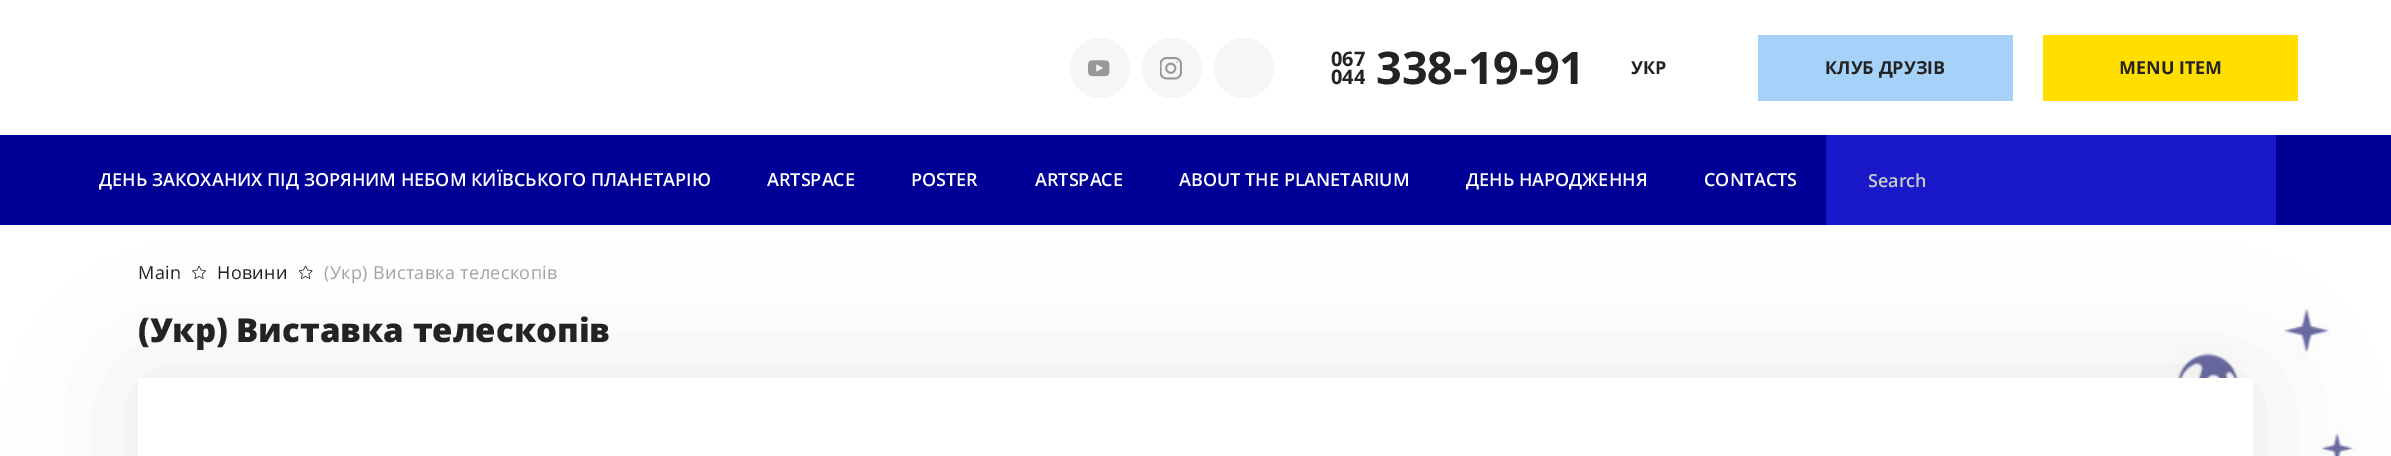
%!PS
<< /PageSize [2391 456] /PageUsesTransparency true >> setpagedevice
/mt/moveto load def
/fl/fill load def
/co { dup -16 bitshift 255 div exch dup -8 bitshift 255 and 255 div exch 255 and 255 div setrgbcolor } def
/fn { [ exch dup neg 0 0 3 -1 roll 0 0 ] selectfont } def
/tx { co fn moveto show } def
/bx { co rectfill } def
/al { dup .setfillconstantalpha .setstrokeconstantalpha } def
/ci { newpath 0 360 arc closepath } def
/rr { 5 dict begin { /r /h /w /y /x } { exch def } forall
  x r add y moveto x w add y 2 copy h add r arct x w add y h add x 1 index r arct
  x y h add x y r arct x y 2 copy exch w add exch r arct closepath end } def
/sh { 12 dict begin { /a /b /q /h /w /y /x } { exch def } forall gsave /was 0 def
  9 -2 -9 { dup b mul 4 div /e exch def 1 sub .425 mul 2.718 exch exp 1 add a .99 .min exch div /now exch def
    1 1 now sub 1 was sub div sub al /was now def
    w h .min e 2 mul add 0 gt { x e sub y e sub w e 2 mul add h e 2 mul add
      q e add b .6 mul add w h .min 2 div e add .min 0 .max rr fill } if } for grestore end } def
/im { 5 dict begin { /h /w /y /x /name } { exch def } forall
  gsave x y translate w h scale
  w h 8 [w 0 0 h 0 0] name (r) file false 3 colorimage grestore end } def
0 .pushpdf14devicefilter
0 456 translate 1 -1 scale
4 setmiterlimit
0 0 2391 456 16#FFFFFF bx
16#F6F6F6 co
1100 68 30 ci fl
(media/1.raw) 1088 60 22 17 im
1172 68 30 ci fl
(media/2.raw) 1160 57 22 23 im
1244 68 30 ci fl
1758 35 255 66 16#A6D1F8 bx
2043 35 255 66 16#FFDE00 bx
(media/5.raw) 1587 309 772 147 im
16#000000 co
138 378 2115 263 5 60 .08 sh
0 135 2391 90 16#000096 bx
1826 135 450 90 16#1919CA bx
(media/3.raw) 192 266 14 13 im
(media/4.raw) 299 266 14 13 im
16#FFFFFF co
138 378 2115 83 5 rr fl
(067) 1331 66 /OpenSans-Bold 20 16#232323 tx
(338-19-91) 1376 84 /OpenSans-Bold 45 16#232323 tx
(044) 1331 84 /OpenSans-Bold 20 16#232323 tx
(УКР) 1631 74 /OpenSans-Bold 18 16#232323 tx
(КЛУБ ДРУЗІВ) 1825 74 /OpenSans-Bold 18 16#232323 tx
(MENU ITEM) 2119 74 /OpenSans-Bold 18 16#232323 tx
(ДЕНЬ ЗАКОХАНИХ ПІД ЗОРЯНИМ НЕБОМ КИЇВСЬКОГО ПЛАНЕТАРІЮ) 99 186 /OpenSans-SemiBold 18 16#FFFFFF tx
(ARTSPACE) 767 186 /OpenSans-SemiBold 18 16#FFFFFF tx
(POSTER) 911 186 /OpenSans-SemiBold 18 16#FFFFFF tx
(ARTSPACE) 1035 186 /OpenSans-SemiBold 18 16#FFFFFF tx
(ABOUT THE PLANETARIUM) 1179 186 /OpenSans-SemiBold 18 16#FFFFFF tx
(ДЕНЬ НАРОДЖЕННЯ) 1466 186 /OpenSans-SemiBold 18 16#FFFFFF tx
(CONTACTS) 1704 186 /OpenSans-SemiBold 18 16#FFFFFF tx
(Search) 1868 187 /OpenSans-SemiBold 18 16#CCCCCC tx
/OpenSans-Regular 18 fn
16#232323 co
138 279 mt .35 0 (Main) ashow
217 279 mt .35 0 (Новини) ashow
16#A3A3A3 co
324 279 mt .35 0 (\(Укр\) Виставка телескопів) ashow
(\(Укр\) Виставка телескопів) 138 342 /OpenSans-ExtraBold 33 16#232323 tx
.poppdf14devicefilter showpage
